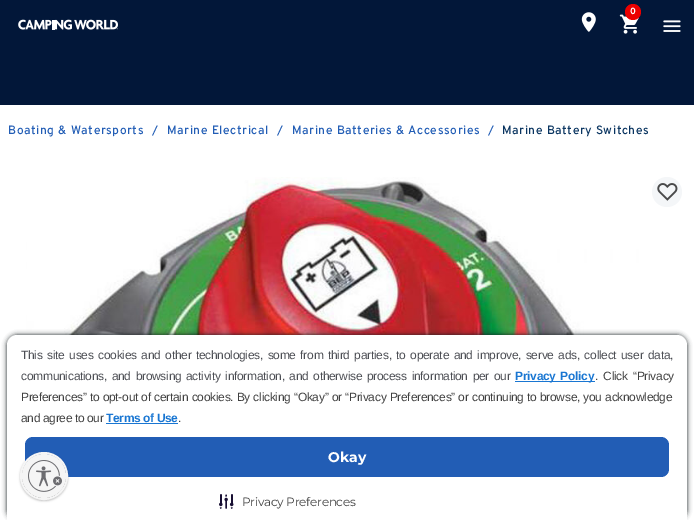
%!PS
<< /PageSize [694 520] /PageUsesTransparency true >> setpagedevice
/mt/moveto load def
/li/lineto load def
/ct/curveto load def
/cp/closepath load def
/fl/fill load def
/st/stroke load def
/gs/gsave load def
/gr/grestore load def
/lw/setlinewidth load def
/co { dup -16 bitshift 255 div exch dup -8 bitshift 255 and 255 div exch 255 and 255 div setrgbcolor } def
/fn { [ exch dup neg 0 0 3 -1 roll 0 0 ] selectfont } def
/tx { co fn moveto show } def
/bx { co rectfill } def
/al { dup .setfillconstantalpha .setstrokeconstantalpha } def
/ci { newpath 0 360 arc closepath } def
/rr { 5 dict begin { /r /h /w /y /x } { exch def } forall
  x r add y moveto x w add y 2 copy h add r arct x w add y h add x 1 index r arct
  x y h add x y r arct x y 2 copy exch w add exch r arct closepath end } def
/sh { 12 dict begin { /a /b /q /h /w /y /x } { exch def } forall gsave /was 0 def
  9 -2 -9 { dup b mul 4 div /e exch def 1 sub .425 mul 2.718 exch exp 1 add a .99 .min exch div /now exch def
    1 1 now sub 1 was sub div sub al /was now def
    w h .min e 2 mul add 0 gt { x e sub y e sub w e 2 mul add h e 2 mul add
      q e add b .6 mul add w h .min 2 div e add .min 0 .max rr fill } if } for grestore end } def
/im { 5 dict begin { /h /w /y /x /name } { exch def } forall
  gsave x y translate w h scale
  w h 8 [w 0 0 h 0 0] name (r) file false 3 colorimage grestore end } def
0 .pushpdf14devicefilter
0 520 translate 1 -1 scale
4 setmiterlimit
0 0 694 520 16#FFFFFF bx
0 0 694 105 16#021739 bx
(media/1.raw) 619 14 20 20 im
16#EB0000 co
633 12 8 ci fl
(media/2.raw) 581 12 15 20 im
(media/3.raw) 663 20 18 12 im
(media/4.raw) 18 19 100 11 im
(media/5.raw) 26 177 632 158 im
16#F4F6F8 co
667 192 15 ci fl
(media/6.raw) 657 183 21 18 im
16#192224 co
7 335 680 185 10 2.5 1 sh
16#FFFFFF co
17 335 mt 677 335 li 682.5 335 687 339.5 687 345 ct 687 520 li 7 520 li 7 345 li 7 339.5 11.5 335 17 335 ct cp fl
515 381 80 1 16#1976D2 bx
106 423 72 1 16#1976D2 bx
16#225DB5 co
25 437 644 40 8 rr fl
(media/7.raw) 219 494 15 15 im
16#000000 co
20 453 48 48 24 1 .24 sh
16#F5F5F5 co
2 lw
44 476 23 ci st
gs
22 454 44 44 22 rr clip newpath
16#000000 co
22 455 44 44 22 1 .24 sh
gr
44 476 22 ci fl
(media/8.raw) 28 460 34 32 im
/Overpass-Bold 9 fn
16#FFFFFF co
630 14 mt -.27 0 (0) ashow
/Overpass-Medium 12 fn
16#225DB5 co
8 134 mt .6 0 (Boating & Watersports) ashow
152 134 mt .6 0 (/) ashow
167 134 mt .6 0 (Marine Electrical) ashow
277 134 mt .6 0 (/) ashow
292 134 mt .6 0 (Marine Batteries & Accessories) ashow
488 134 mt .6 0 (/) ashow
16#093460 co
502 134 mt .6 0 (Marine Battery Switches) ashow
/LiberationSans-Regular 12 fn
16#4C4E54 co
21 359 mt 1.5 0 32 -.27 0 (This site uses cookies and other technologies, some from third parties, to operate and improve, serve ads, collect user data,) awidthshow
21 380 mt 1.6 0 32 -.27 0 (communications, and browsing activity information, and otherwise process information per our) awidthshow
/LiberationSans-Bold 12 fn
16#1976D2 co
515 380 mt 1.6 0 32 -.27 0 (Privacy Policy) awidthshow
/LiberationSans-Regular 12 fn
16#404040 co
595 380 mt 2 0 32 -.27 0 (. Click “Privacy) awidthshow
21 401 mt .25 0 32 -.27 0 (Preferences” to opt-out of certain cookies. By clicking “Okay” or “Privacy Preferences” or continuing to browse, you acknowledge) awidthshow
21 422 mt -.5 0 32 -.27 0 (and agree to our) awidthshow
/LiberationSans-Bold 12 fn
16#1976D2 co
106 422 mt -.5 0 32 -.27 0 (Terms of Use) awidthshow
/LiberationSans-Regular 12 fn
16#404040 co
178 422 mt -.27 0 (.) ashow
(Okay) 328 462 /Montserrat-Bold 14 16#FFFFFF tx
/Montserrat-Regular 12 fn
16#404040 co
242 506 mt -.27 0 (Privacy Preferences) ashow
.poppdf14devicefilter showpage
